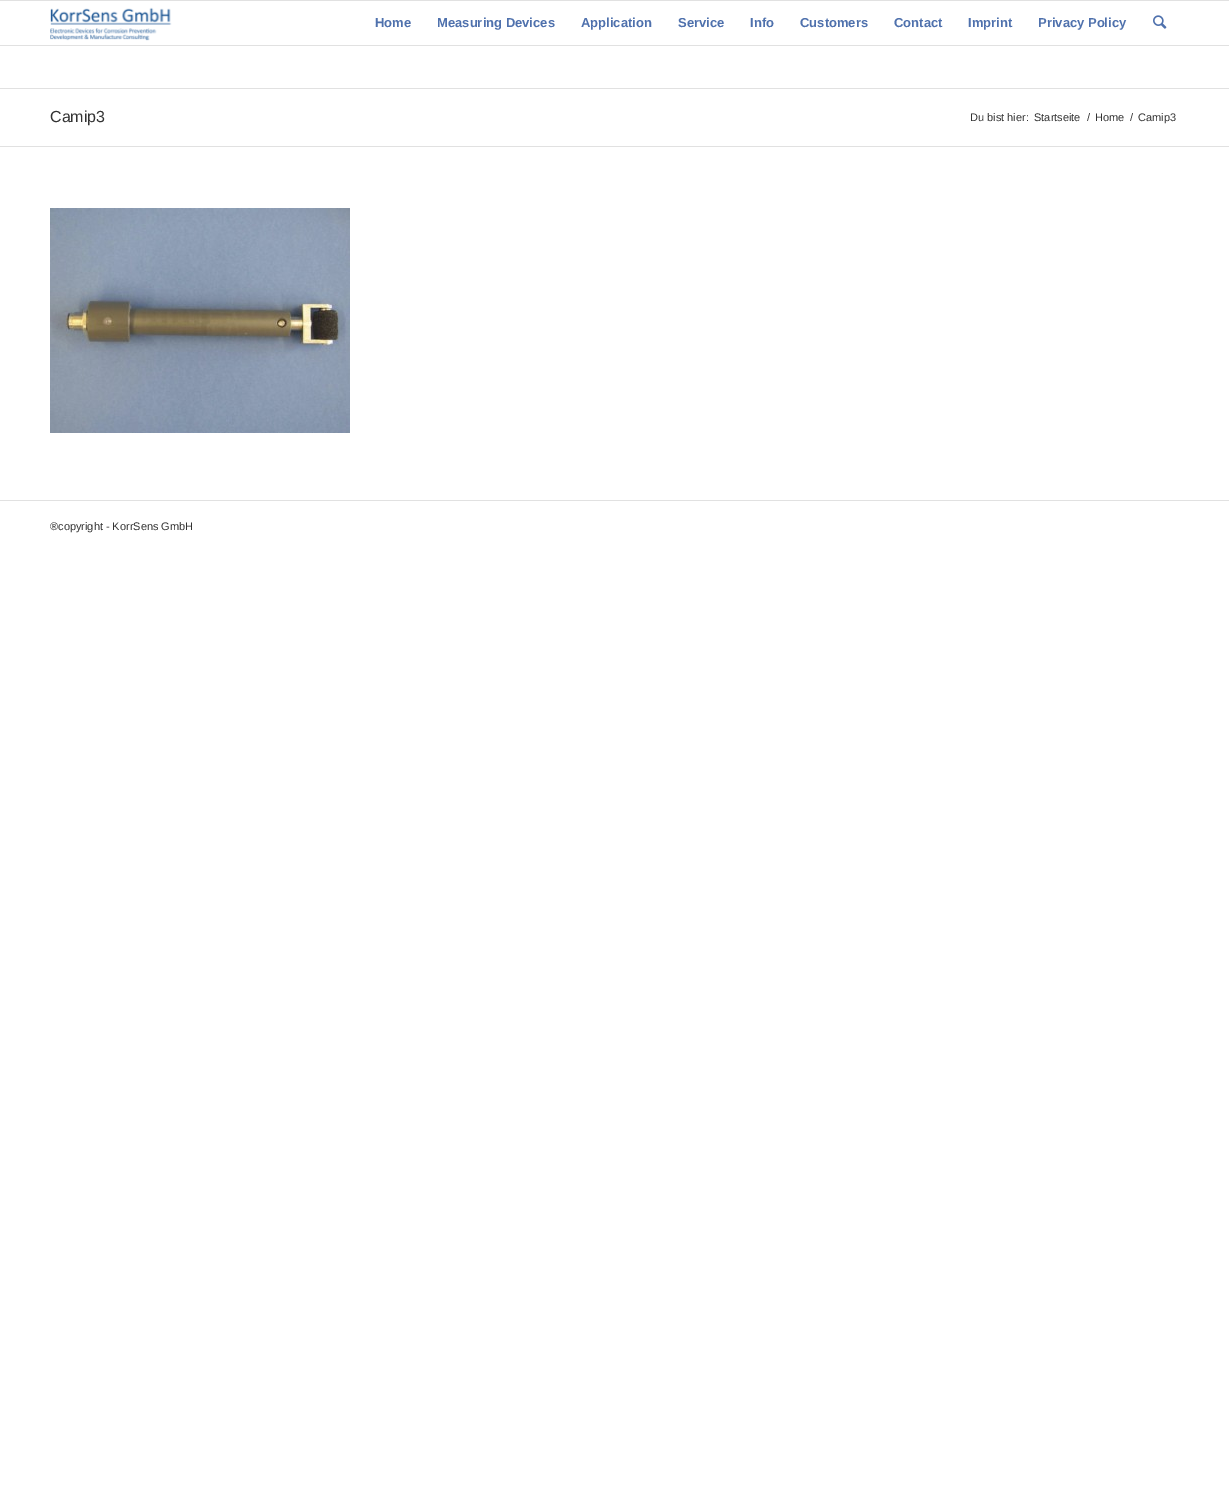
%!PS
<< /PageSize [1229 1512] >> setpagedevice
/co { dup -16 bitshift 255 div exch dup -8 bitshift 255 and 255 div exch 255 and 255 div setrgbcolor } def
/fn { [ exch dup neg 0 0 3 -1 roll 0 0 ] selectfont } def
/tx { co fn moveto show } def
/bx { co rectfill } def
/im { 5 dict begin { /h /w /y /x /name } { exch def } forall
  gsave x y translate w h scale
  w h 8 [w 0 0 h 0 0] name (r) file false 3 colorimage grestore end } def
0 1512 translate 1 -1 scale
4 setmiterlimit
0 0 1229 1512 16#FFFFFF bx
0 0 1229 1 16#E1E1E1 bx
0 45 1229 1 16#E1E1E1 bx
(media/1.raw) 50 7 122 34 im
(media/2.raw) 1153 15 14 14 im
0 88 1229 1 16#E1E1E1 bx
0 146 1229 1 16#E1E1E1 bx
(media/3.raw) 50 208 300 225 im
0 500 1229 1 16#E1E1E1 bx
(Home) 375 27 /LiberationSans-Bold 13 16#4F71AD tx
(Measuring Devices) 437 27 /LiberationSans-Bold 13 16#4F71AD tx
(Application) 581 27 /LiberationSans-Bold 13 16#4F71AD tx
(Service) 678 27 /LiberationSans-Bold 13 16#4F71AD tx
(Info) 750 27 /LiberationSans-Bold 13 16#4F71AD tx
(Customers) 800 27 /LiberationSans-Bold 13 16#4F71AD tx
(Contact) 894 27 /LiberationSans-Bold 13 16#4F71AD tx
(Imprint) 968 27 /LiberationSans-Bold 13 16#4F71AD tx
(Privacy Policy) 1038 27 /LiberationSans-Bold 13 16#4F71AD tx
(Camip3) 50 122 /LiberationSans-Regular 16 16#333333 tx
(Du bist hier:) 970 121 /LiberationSans-Regular 11 16#333333 tx
(Startseite) 1034 121 /LiberationSans-Regular 11 16#333333 tx
(/) 1087 121 /LiberationSans-Regular 11 16#333333 tx
(Home) 1095 121 /LiberationSans-Regular 11 16#333333 tx
(/) 1130 121 /LiberationSans-Regular 11 16#333333 tx
(Camip3) 1138 121 /LiberationSans-Regular 11 16#333333 tx
(®copyright - KorrSens GmbH) 50 530 /LiberationSans-Regular 11 16#333333 tx
showpage
